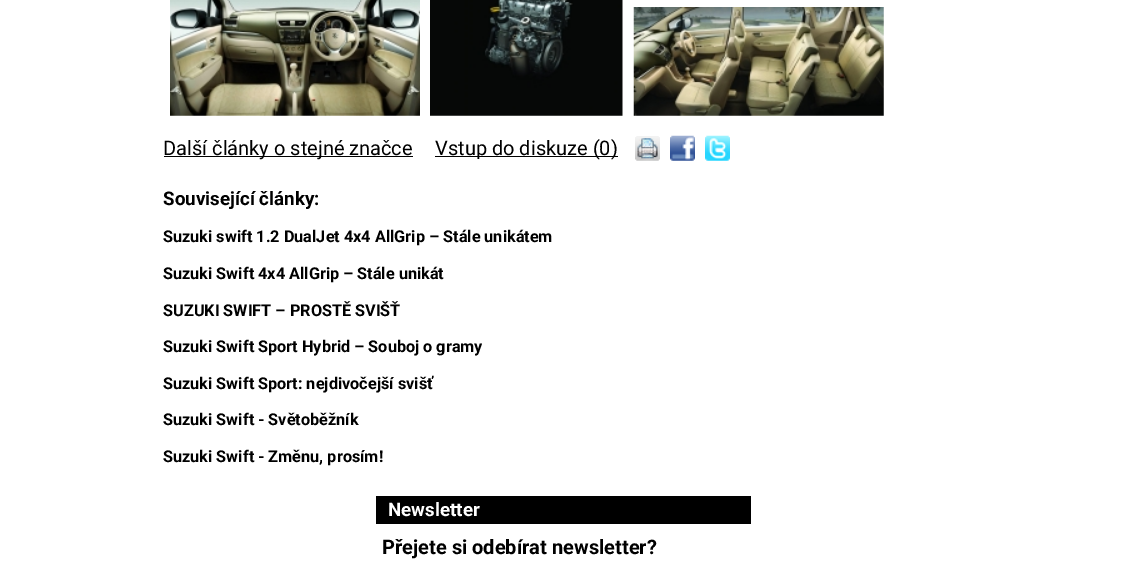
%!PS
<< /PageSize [1128 577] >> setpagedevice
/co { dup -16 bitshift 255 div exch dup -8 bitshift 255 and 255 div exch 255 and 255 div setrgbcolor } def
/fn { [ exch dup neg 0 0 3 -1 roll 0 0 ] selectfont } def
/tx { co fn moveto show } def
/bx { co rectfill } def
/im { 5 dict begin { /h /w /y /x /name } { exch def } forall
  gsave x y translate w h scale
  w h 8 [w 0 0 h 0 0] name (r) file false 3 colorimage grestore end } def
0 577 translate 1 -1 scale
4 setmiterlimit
0 0 1128 577 16#FFFFFF bx
(media/1.raw) 170 0 250 116 im
(media/2.raw) 430 0 193 116 im
(media/3.raw) 633 7 251 109 im
164 156 249 1 16#000000 bx
435 156 183 1 16#000000 bx
(media/4.raw) 635 136 25 25 im
(media/5.raw) 670 135 25 26 im
(media/6.raw) 705 135 25 26 im
376 496 375 28 16#000000 bx
(Další články o stejné značce) 163 155 /Roboto-Regular 20 16#000000 tx
(Vstup do diskuze \(0\)) 435 155 /Roboto-Regular 20 16#000000 tx
(Související články:) 163 205 /Roboto-Bold 18.75 16#000000 tx
(Suzuki swift 1.2 DualJet 4x4 AllGrip – Stále unikátem) 163 242 /Roboto-Bold 16.25 16#000000 tx
(Suzuki Swift 4x4 AllGrip – Stále unikát) 163 279 /Roboto-Bold 16.25 16#000000 tx
(SUZUKI SWIFT – PROSTĚ SVIŠŤ) 163 316 /Roboto-Bold 16.25 16#000000 tx
(Suzuki Swift Sport Hybrid – Souboj o gramy) 163 352 /Roboto-Bold 16.25 16#000000 tx
(Suzuki Swift Sport: nejdivočejší svišť) 163 389 /Roboto-Bold 16.25 16#000000 tx
(Suzuki Swift - Světoběžník) 163 425 /Roboto-Bold 16.25 16#000000 tx
(Suzuki Swift - Změnu, prosím!) 163 462 /Roboto-Bold 16.25 16#000000 tx
(Newsletter) 388 516 /Roboto-Bold 18.75 16#FFFFFF tx
(Přejete si odebírat newsletter?) 382 554 /Roboto-Bold 20 16#000000 tx
showpage
